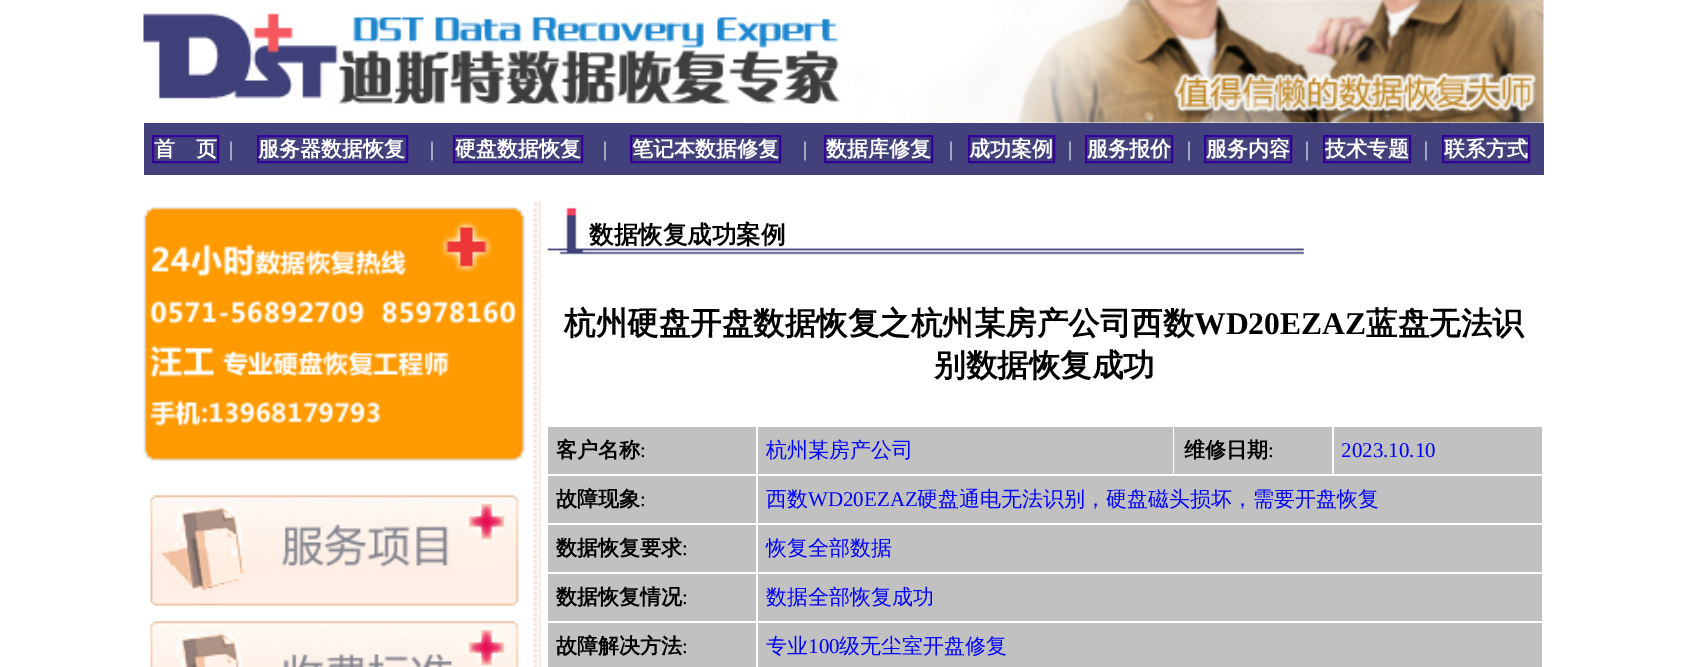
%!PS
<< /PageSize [1685 667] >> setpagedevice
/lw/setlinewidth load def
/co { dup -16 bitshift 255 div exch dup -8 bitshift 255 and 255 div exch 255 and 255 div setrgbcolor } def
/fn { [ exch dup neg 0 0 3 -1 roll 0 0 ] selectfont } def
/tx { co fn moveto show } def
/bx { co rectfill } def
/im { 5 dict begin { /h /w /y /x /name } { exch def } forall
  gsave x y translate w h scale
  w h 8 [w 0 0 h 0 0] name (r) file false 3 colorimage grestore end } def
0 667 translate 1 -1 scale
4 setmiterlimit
0 0 1685 667 16#FFFFFF bx
(media/1.raw) 749 0 795 123 im
(media/2.raw) 143 13 698 109 im
144 123 1400 52 16#42417B bx
16#330099 co
2 lw
153 136 65 26 rectstroke
258 136 149 26 rectstroke
454 136 128 26 rectstroke
631 136 149 26 rectstroke
825 136 107 26 rectstroke
969 136 85 26 rectstroke
1086 136 86 26 rectstroke
1205 136 86 26 rectstroke
1324 136 86 26 rectstroke
1443 136 86 26 rectstroke
(media/3.raw) 143 206 382 256 im
(media/4.raw) 150 494 369 112 im
(media/5.raw) 150 620 369 47 im
(media/6.raw) 533 201 9 466 im
(media/7.raw) 546 201 758 55 im
548 427 208 47 16#C1C1C1 bx
758 427 415 47 16#C1C1C1 bx
1174 427 158 47 16#C1C1C1 bx
1334 427 208 47 16#C1C1C1 bx
548 476 208 47 16#C1C1C1 bx
758 476 784 47 16#C1C1C1 bx
548 525 208 47 16#C1C1C1 bx
758 525 784 47 16#C1C1C1 bx
548 574 208 47 16#C1C1C1 bx
758 574 784 47 16#C1C1C1 bx
548 623 208 44 16#C1C1C1 bx
758 623 784 44 16#C1C1C1 bx
(首　页) 154 156 /WenQuanYiZenHei-Bold 21 16#FFFFFF tx
(|) 229 156 /LiberationSerif-Regular 21 16#FFFFFF tx
(服务器数据恢复) 258 156 /WenQuanYiZenHei-Bold 21 16#FFFFFF tx
(|) 430 156 /LiberationSerif-Regular 21 16#FFFFFF tx
(硬盘数据恢复) 455 156 /WenQuanYiZenHei-Bold 21 16#FFFFFF tx
(|) 603 156 /LiberationSerif-Regular 21 16#FFFFFF tx
(笔记本数据修复) 632 156 /WenQuanYiZenHei-Bold 21 16#FFFFFF tx
(|) 803 156 /LiberationSerif-Regular 21 16#FFFFFF tx
(数据库修复) 826 156 /WenQuanYiZenHei-Bold 21 16#FFFFFF tx
(|) 949 156 /LiberationSerif-Regular 21 16#FFFFFF tx
(成功案例) 969 156 /WenQuanYiZenHei-Bold 21 16#FFFFFF tx
(|) 1068 156 /LiberationSerif-Regular 21 16#FFFFFF tx
(服务报价) 1087 156 /WenQuanYiZenHei-Bold 21 16#FFFFFF tx
(|) 1187 156 /LiberationSerif-Regular 21 16#FFFFFF tx
(服务内容) 1206 156 /WenQuanYiZenHei-Bold 21 16#FFFFFF tx
(|) 1305 156 /LiberationSerif-Regular 21 16#FFFFFF tx
(技术专题) 1325 156 /WenQuanYiZenHei-Bold 21 16#FFFFFF tx
(|) 1424 156 /LiberationSerif-Regular 21 16#FFFFFF tx
(联系方式) 1444 156 /WenQuanYiZenHei-Bold 21 16#FFFFFF tx
(数据恢复成功案例) 589 243 /WenQuanYiZenHei-Bold 24.5 16#000000 tx
(杭州硬盘开盘数据恢复之杭州某房产公司西数) 564 334 /WenQuanYiZenHei-Bold 31.5 16#000000 tx
(WD20EZAZ) 1194 334 /LiberationSerif-Bold 31.5 16#000000 tx
(蓝盘无法识) 1366 334 /WenQuanYiZenHei-Bold 31.5 16#000000 tx
(别数据恢复成功) 934 376 /WenQuanYiZenHei-Bold 31.5 16#000000 tx
(客户名称) 556 457 /WenQuanYiZenHei-Bold 21 16#000000 tx
(:) 640 457 /LiberationSerif-Regular 21 16#000000 tx
(杭州某房产公司) 766 457 /WenQuanYiZenHei-Medium 21 16#0000FF tx
(维修日期) 1184 457 /WenQuanYiZenHei-Bold 21 16#000000 tx
(:) 1268 457 /LiberationSerif-Regular 21 16#000000 tx
(2023.10.10) 1341 457 /LiberationSerif-Regular 21 16#0000FF tx
(故障现象) 556 506 /WenQuanYiZenHei-Bold 21 16#000000 tx
(:) 640 506 /LiberationSerif-Regular 21 16#000000 tx
(西数) 766 506 /WenQuanYiZenHei-Medium 21 16#0000FF tx
(WD20EZAZ) 808 506 /LiberationSerif-Regular 21 16#0000FF tx
(硬盘通电无法识别，硬盘磁头损坏，需要开盘恢复) 917 506 /WenQuanYiZenHei-Medium 21 16#0000FF tx
(数据恢复要求) 556 555 /WenQuanYiZenHei-Bold 21 16#000000 tx
(:) 682 555 /LiberationSerif-Regular 21 16#000000 tx
(恢复全部数据) 766 555 /WenQuanYiZenHei-Medium 21 16#0000FF tx
(数据恢复情况) 556 604 /WenQuanYiZenHei-Bold 21 16#000000 tx
(:) 682 604 /LiberationSerif-Regular 21 16#000000 tx
(数据全部恢复成功) 766 604 /WenQuanYiZenHei-Medium 21 16#0000FF tx
(故障解决方法) 556 653 /WenQuanYiZenHei-Bold 21 16#000000 tx
(:) 682 653 /LiberationSerif-Regular 21 16#000000 tx
(专业) 766 653 /WenQuanYiZenHei-Medium 21 16#0000FF tx
(100) 808 653 /LiberationSerif-Regular 21 16#0000FF tx
(级无尘室开盘修复) 839 653 /WenQuanYiZenHei-Medium 21 16#0000FF tx
showpage
